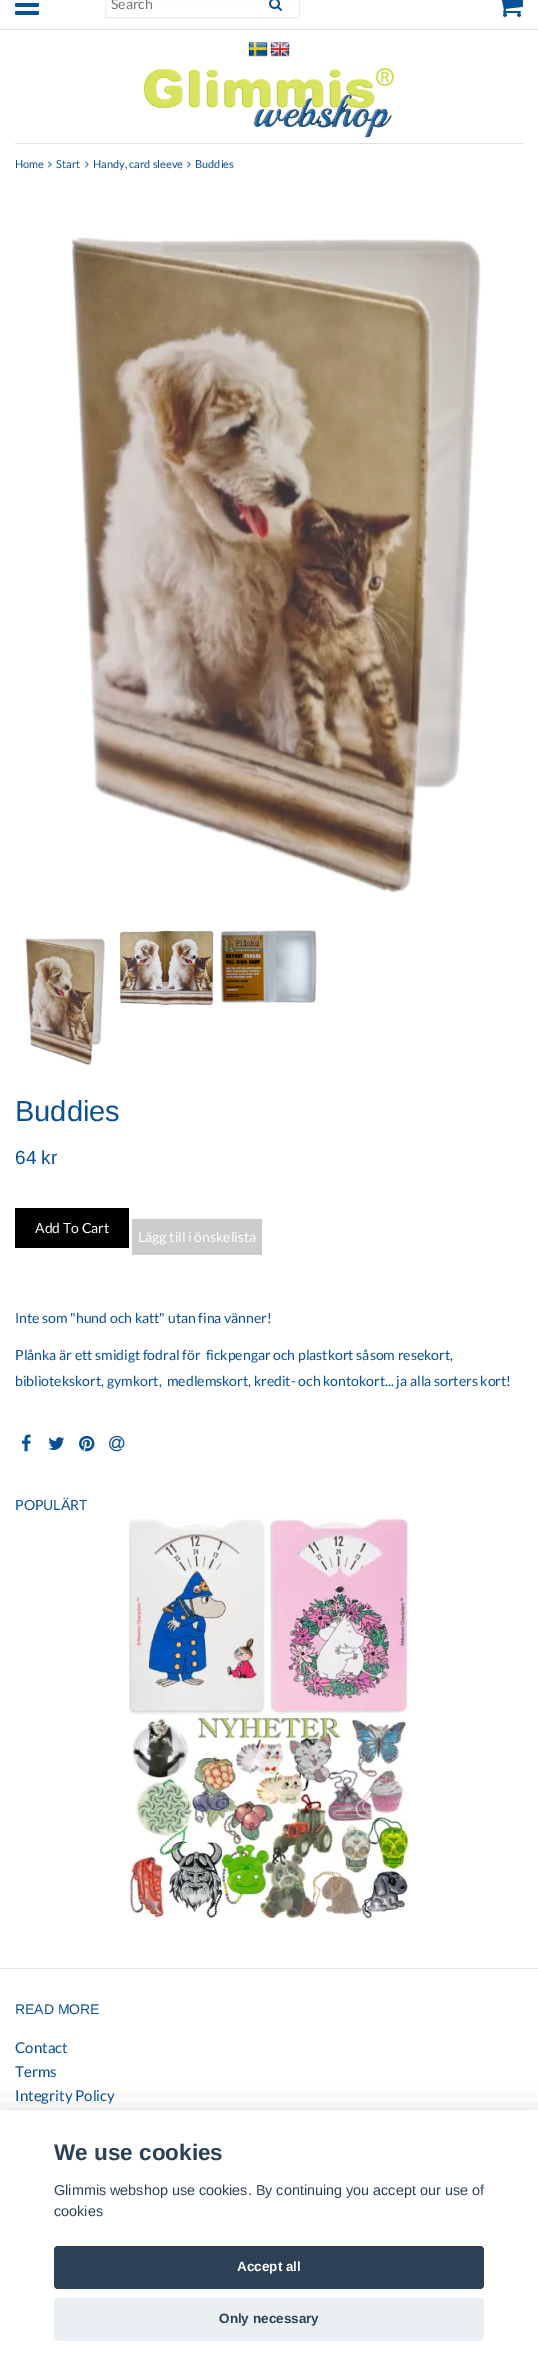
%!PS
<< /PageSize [538 2371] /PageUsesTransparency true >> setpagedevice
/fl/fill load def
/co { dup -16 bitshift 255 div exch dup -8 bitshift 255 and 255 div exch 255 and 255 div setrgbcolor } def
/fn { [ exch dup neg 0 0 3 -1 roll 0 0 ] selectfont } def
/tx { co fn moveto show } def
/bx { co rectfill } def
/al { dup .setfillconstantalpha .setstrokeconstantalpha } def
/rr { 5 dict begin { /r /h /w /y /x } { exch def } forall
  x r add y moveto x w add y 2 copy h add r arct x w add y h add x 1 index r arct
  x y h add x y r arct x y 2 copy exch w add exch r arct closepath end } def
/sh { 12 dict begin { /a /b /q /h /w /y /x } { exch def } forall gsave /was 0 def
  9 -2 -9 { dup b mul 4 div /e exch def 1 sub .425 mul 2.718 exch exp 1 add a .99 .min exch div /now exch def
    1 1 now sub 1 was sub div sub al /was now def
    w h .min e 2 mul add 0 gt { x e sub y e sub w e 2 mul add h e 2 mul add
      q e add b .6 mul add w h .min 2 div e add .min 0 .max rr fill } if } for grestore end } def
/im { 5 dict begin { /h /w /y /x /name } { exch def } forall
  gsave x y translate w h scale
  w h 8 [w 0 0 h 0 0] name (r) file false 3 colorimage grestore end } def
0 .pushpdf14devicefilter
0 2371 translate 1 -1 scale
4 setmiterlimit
0 0 538 2371 16#FFFFFF bx
0 29 538 1 16#E0E0E0 bx
(media/1.raw) 15 3 24 12 im
16#EEEEEE co
105.5 -.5 194 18 rectstroke
(media/2.raw) 269 0 13 11 im
(media/3.raw) 501 0 22 17 im
(media/4.raw) 248 42 20 15 im
(media/5.raw) 270 42 20 15 im
(media/6.raw) 144 68 250 70 im
15 143 508 1 16#E0E0E0 bx
(media/7.raw) 48 161 4 7 im
(media/7.raw) 85 161 4 7 im
(media/7.raw) 187 161 4 7 im
(media/8.raw) 71 237 410 656 im
(media/9.raw) 26 938 79 127 im
(media/10.raw) 119 930 95 75 im
(media/11.raw) 220 930 97 73 im
15 1208 114 40 16#000000 bx
132 1219 130 36 16#CCCCCC bx
(media/12.raw) 21 1434 10 18 im
(media/13.raw) 48 1437 17 13 im
(media/14.raw) 79 1435 16 17 im
(media/15.raw) 109 1435 16 17 im
(media/16.raw) 129 1518 280 198 im
(media/17.raw) 129 1718 280 200 im
0 1968 538 1 16#E0E0E0 bx
16#020203 co
0 2120 538 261 0 15 .28 sh
0 2110 538 261 16#FFFFFF bx
16#2D4156 co
54 2246 430 43 4 rr fl
16#EAEFF2 co
54 2298 430 43 4 rr fl
(Search) 111 9 /Lato-Regular 14 16#757575 tx
(Home) 15 168 /Lato-Regular 11 16#095095 tx
(Start) 56 168 /Lato-Regular 11 16#095095 tx
(Handy, card sleeve) 93 168 /Lato-Regular 11 16#095095 tx
(Buddies) 195 168 /Lato-Regular 11 16#095095 tx
(Buddies) 15 1121 /LiberationSans-Regular 29 16#095095 tx
(64 kr) 15 1164 /LiberationSans-Regular 19 16#095095 tx
(Add To Cart) 35 1233 /Lato-Regular 14 16#FFFFFF tx
(Lägg till i önskelista) 138 1242 /Lato-Regular 14 16#FFFFFF tx
(Inte som "hund och katt" utan fina vänner!) 15 1323 /Lato-Regular 14 16#095095 tx
(Plånka är ett smidigt fodral för  fickpengar och plastkort såsom resekort,) 15 1360 /Lato-Regular 14 16#095095 tx
(bibliotekskort, gymkort,  medlemskort, kredit- och kontokort... ja alla sorters kort!) 15 1386 /Lato-Regular 14 16#095095 tx
(POPULÄRT) 15 1510 /Lato-Regular 14 16#095095 tx
(READ MORE) 15 2014 /LiberationSans-Regular 14 16#095095 tx
(Contact) 15 2053 /Lato-Regular 15 16#095095 tx
(Terms) 15 2077 /Lato-Regular 15 16#095095 tx
(Integrity Policy) 15 2101 /Lato-Regular 15 16#095095 tx
(We use cookies) 54 2160 /LiberationSans-Bold 22.5 16#2D4156 tx
(Glimmis webshop use cookies. By continuing you accept our use of) 54 2195 /LiberationSans-Regular 14.4 16#2D4156 tx
(cookies) 54 2216 /LiberationSans-Regular 14.4 16#2D4156 tx
(Accept all) 237 2271 /LiberationSans-Bold 13.5 16#FFFFFF tx
(Only necessary) 219 2323 /LiberationSans-Bold 13.5 16#2D4156 tx
.poppdf14devicefilter showpage
